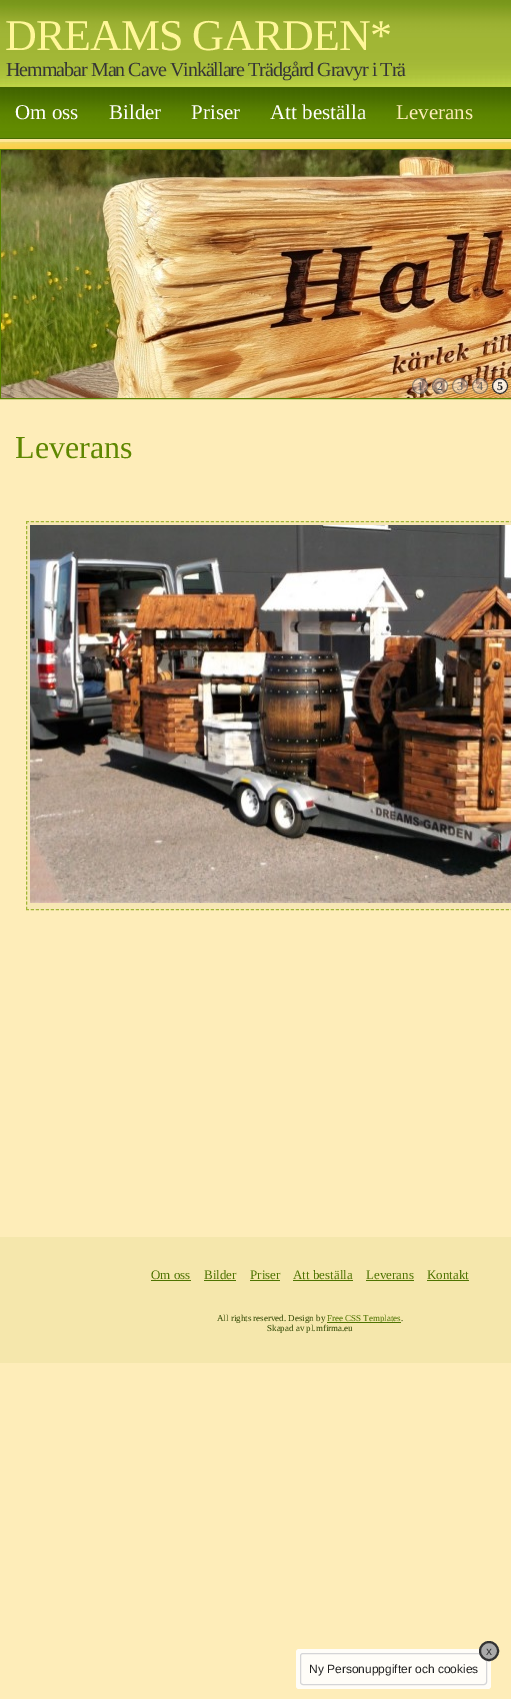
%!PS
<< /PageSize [511 1699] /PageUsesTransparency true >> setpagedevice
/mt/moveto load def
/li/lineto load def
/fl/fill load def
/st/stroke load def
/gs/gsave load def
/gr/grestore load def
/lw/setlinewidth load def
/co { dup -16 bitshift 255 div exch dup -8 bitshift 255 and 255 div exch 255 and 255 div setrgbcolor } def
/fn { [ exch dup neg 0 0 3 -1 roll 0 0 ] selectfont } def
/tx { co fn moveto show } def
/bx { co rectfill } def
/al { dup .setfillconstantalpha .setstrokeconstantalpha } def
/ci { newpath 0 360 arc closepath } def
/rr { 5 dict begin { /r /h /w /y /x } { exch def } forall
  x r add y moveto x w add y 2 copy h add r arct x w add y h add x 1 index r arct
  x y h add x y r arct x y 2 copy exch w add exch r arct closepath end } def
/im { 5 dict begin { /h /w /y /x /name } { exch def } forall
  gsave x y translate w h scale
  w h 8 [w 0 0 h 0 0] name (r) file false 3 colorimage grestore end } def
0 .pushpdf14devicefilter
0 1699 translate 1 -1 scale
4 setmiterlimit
0 0 511 1699 16#FEEDB9 bx
(media/1.raw) 0 0 511 149 im
16#5A8200 co
.5 149.5 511 249 rectstroke
(media/2.raw) 1 150 510 248 im
0.4 al
16#FFFFFF co
420 386 8 ci fl
16#000000 co
420 386 7.5 ci st
16#FFFFFF co
440 386 8 ci fl
16#000000 co
440 386 7.5 ci st
16#FFFFFF co
460 386 8 ci fl
16#000000 co
460 386 7.5 ci st
16#FFFFFF co
480 386 8 ci fl
16#000000 co
480 386 7.5 ci st
0.8 al
16#FFFFFF co
500 386 8 ci fl
16#000000 co
500 386 7.5 ci st
1 al
26 521 485 389 16#F7E7B4 bx
16#A1B635 co
[3 2] 0 setdash
26 521.5 mt 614 521.5 li st
26 909.5 mt 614 909.5 li st
[3 2.01] 0 setdash
26.5 521 mt 26.5 910 li st
(media/3.raw) 30 525 481 378 im
0 1237 511 126 16#F5E7AC bx
151 1280 40 1 16#4E7301 bx
204 1280 32 1 16#4E7301 bx
250 1280 30 1 16#4E7301 bx
293 1280 60 1 16#4E7301 bx
366 1280 48 1 16#4E7301 bx
427 1280 42 1 16#4E7301 bx
327 1322 74 1 16#4E7301 bx
16#FFFDF8 co
296 1649 195 40 3 rr fl
16#D5D5D7 co
[] 0 setdash
300.5 1653.5 186 31 2.5 rr st
16#AAAAAA co
489 1651 9 ci gs fl gr
16#333333 co
2 lw
st
/LiberationSerif-Regular 44 fn
16#FFF799 co
5 50 mt -1 0 (DREAMS GARDEN*) ashow
/LiberationSerif-Regular 20 fn
16#363636 co
6 76 mt -1 0 (Hemmabar Man Cave Vinkällare Trädgård Gravyr i Trä) ashow
(Om oss) 15 119 /LiberationSerif-Regular 21 16#FFFFFF tx
(Bilder) 109 119 /LiberationSerif-Regular 21 16#FFFFFF tx
(Priser) 191 119 /LiberationSerif-Regular 21 16#FFFFFF tx
(Att beställa) 270 119 /LiberationSerif-Regular 21 16#FFFFFF tx
(Leverans) 396 119 /LiberationSerif-Regular 21 16#FEEDB9 tx
(1) 417 390 /LiberationSerif-Regular 12 16#555555 tx
(2) 437 390 /LiberationSerif-Regular 12 16#555555 tx
(3) 457 390 /LiberationSerif-Regular 12 16#555555 tx
(4) 477 390 /LiberationSerif-Regular 12 16#555555 tx
(5) 497 390 /LiberationSerif-Bold 12 16#1B1B1B tx
(Leverans) 15 458 /LiberationSerif-Regular 32 16#5F8700 tx
(Om oss) 151 1279 /LiberationSerif-Regular 13 16#4E7301 tx
(Bilder) 204 1279 /LiberationSerif-Regular 13 16#4E7301 tx
(Priser) 250 1279 /LiberationSerif-Regular 13 16#4E7301 tx
(Att beställa) 293 1279 /LiberationSerif-Regular 13 16#4E7301 tx
(Leverans) 366 1279 /LiberationSerif-Regular 13 16#4E7301 tx
(Kontakt) 427 1279 /LiberationSerif-Regular 13 16#4E7301 tx
(All rights reserved. Design by) 217 1321 /LiberationSerif-Regular 9 16#2F4600 tx
(Free CSS Templates) 327 1321 /LiberationSerif-Regular 9 16#4E7301 tx
(.) 401 1321 /LiberationSerif-Regular 9 16#2F4600 tx
(Skapad av pl.mfirma.eu) 267 1331 /LiberationSerif-Regular 9 16#2F4600 tx
(x) 486 1655 /LiberationSans-Regular 12 16#363636 tx
(Ny Personuppgifter och cookies) 309 1673 /LiberationSans-Regular 12 16#222222 tx
.poppdf14devicefilter showpage
